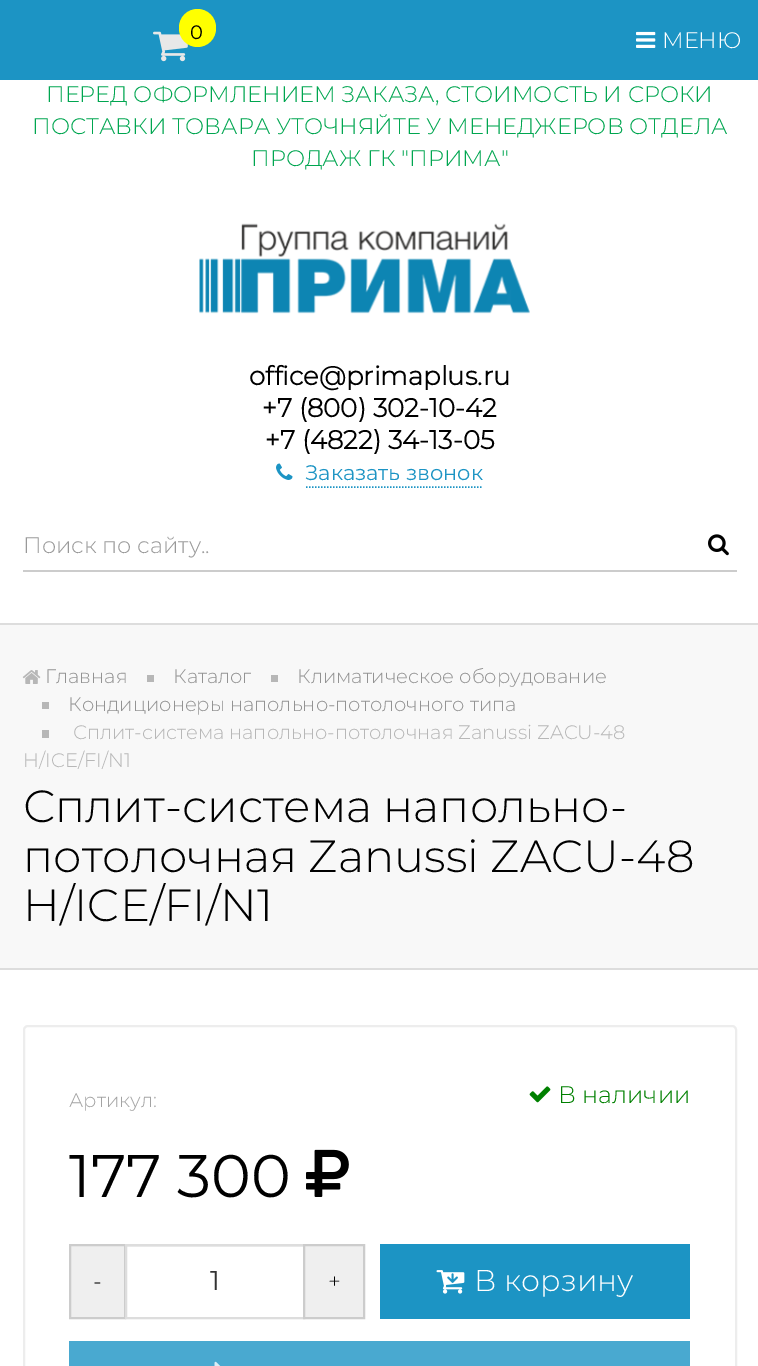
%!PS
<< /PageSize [758 1366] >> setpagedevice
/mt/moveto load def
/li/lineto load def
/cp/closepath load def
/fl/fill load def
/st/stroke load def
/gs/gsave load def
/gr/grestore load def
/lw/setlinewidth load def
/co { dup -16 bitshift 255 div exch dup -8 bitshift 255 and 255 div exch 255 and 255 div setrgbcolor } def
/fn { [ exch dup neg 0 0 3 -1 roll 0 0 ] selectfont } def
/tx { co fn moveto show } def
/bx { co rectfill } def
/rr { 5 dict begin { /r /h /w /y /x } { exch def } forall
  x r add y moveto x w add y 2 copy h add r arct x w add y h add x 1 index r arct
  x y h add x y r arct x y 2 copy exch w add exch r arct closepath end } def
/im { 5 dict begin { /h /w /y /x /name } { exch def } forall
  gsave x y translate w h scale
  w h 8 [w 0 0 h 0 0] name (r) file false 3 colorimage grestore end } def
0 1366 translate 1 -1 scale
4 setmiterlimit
0 0 758 1366 16#FFFFFF bx
0 0 758 80 16#1C94C4 bx
(media/1.raw) 153 31 35 31 im
16#FFFF00 co
179 9 37 38 18.5 rr fl
(media/2.raw) 636 31 20 17 im
(media/3.raw) 199 223 331 91 im
(media/4.raw) 276 463 17 17 im
16#1C94C4 co
1.5 lw
[1.5 1.5] 0 setdash
306 487 mt 483 487 li st
23 570 714 2 16#CCCCCC bx
(media/5.raw) 708 534 21 22 im
0 625 758 343 16#F8F8F8 bx
0 623 758 2 16#DDDDDD bx
0 968 758 2 16#DDDDDD bx
(media/6.raw) 22 670 19 14 im
147 675 7 7 16#B7B7B7 bx
271 675 7 7 16#B7B7B7 bx
42 702 7 7 16#B7B7B7 bx
42 730 7 8 16#B7B7B7 bx
16#EDEDED co
2 lw
[] 0 setdash
24 1026 712 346 4 rr st
(media/7.raw) 529 1086 22 17 im
(media/8.raw) 306 1149 43 48 im
16#EFEFEF co
70 1245 mt 125 1245 li 125 1318 li 70 1318 li cp gs fl gr
16#CCCCCC co
st
126 1246 177 1 16#ECECEC bx
16#DDDDDD co
126 1245 178 73 rectstroke
16#EFEFEF co
304 1245 mt 364 1245 li 364 1318 li 304 1318 li cp gs fl gr
16#CCCCCC co
st
380 1244 310 75 16#1C94C4 bx
(media/9.raw) 436 1270 29 24 im
69 1341 621 25 16#49A9D0 bx
(media/10.raw) 214 1361 7 5 im
(0) 190 39 /Montserrat-Regular 19.5 16#000000 tx
(МЕНЮ) 662 48 /Montserrat-Light 22.5 16#FFFFFF tx
(ПЕРЕД ОФОРМЛЕНИЕМ ЗАКАЗА, СТОИМОСТЬ И СРОКИ) 46 102 /Montserrat-Light 22.5 16#00A650 tx
(ПОСТАВКИ ТОВАРА УТОЧНЯЙТЕ У МЕНЕДЖЕРОВ ОТДЕЛА) 32 134 /Montserrat-Light 22.5 16#00A650 tx
(ПРОДАЖ ГК "ПРИМА") 251 166 /Montserrat-Light 22.5 16#00A650 tx
(office@primaplus.ru) 249 385 /Montserrat-Bold 26 16#000000 tx
(+7 \(800\) 302-10-42) 262 417 /Montserrat-Bold 26 16#000000 tx
(+7 \(4822\) 34-13-05) 265 449 /Montserrat-Bold 26 16#000000 tx
(Заказать звонок) 305 480 /Montserrat-Regular 21 16#1C94C4 tx
(Поиск по сайту..) 23 553 /Montserrat-Light 22.5 16#999999 tx
(Главная) 45 683 /Montserrat-Light 19.5 16#939393 tx
(Каталог) 173 683 /Montserrat-Light 19.5 16#939393 tx
(Климатическое оборудование) 297 683 /Montserrat-Light 19.5 16#939393 tx
(Кондиционеры напольно-потолочного типа) 68 711 /Montserrat-Light 19.5 16#939393 tx
(Сплит-система напольно-потолочная Zanussi ZACU-48) 73 739 /Montserrat-Light 19.5 16#B7B7B7 tx
(H/ICE/FI/N1) 23 767 /Montserrat-Light 19.5 16#B7B7B7 tx
(Сплит-система напольно-) 23 822 /Montserrat-Light 45 16#000000 tx
(потолочная Zanussi ZACU-48) 23 872 /Montserrat-Light 45 16#000000 tx
(H/ICE/FI/N1) 23 921 /Montserrat-Light 45 16#000000 tx
(Артикул:) 69 1107 /Montserrat-Light 19.5 16#A3A3A3 tx
(В наличии) 558 1103 /Montserrat-Light 24 16#008000 tx
(177 300) 69 1197 /Montserrat-Regular 60 16#000000 tx
(-) 93 1289 /Montserrat-Light 22.5 16#000000 tx
(1) 210 1290 /Montserrat-Regular 27 16#333333 tx
(+) 328 1289 /Montserrat-Light 22.5 16#000000 tx
(В корзину) 474 1291 /Montserrat-Light 30 16#FFFFFF tx
showpage
